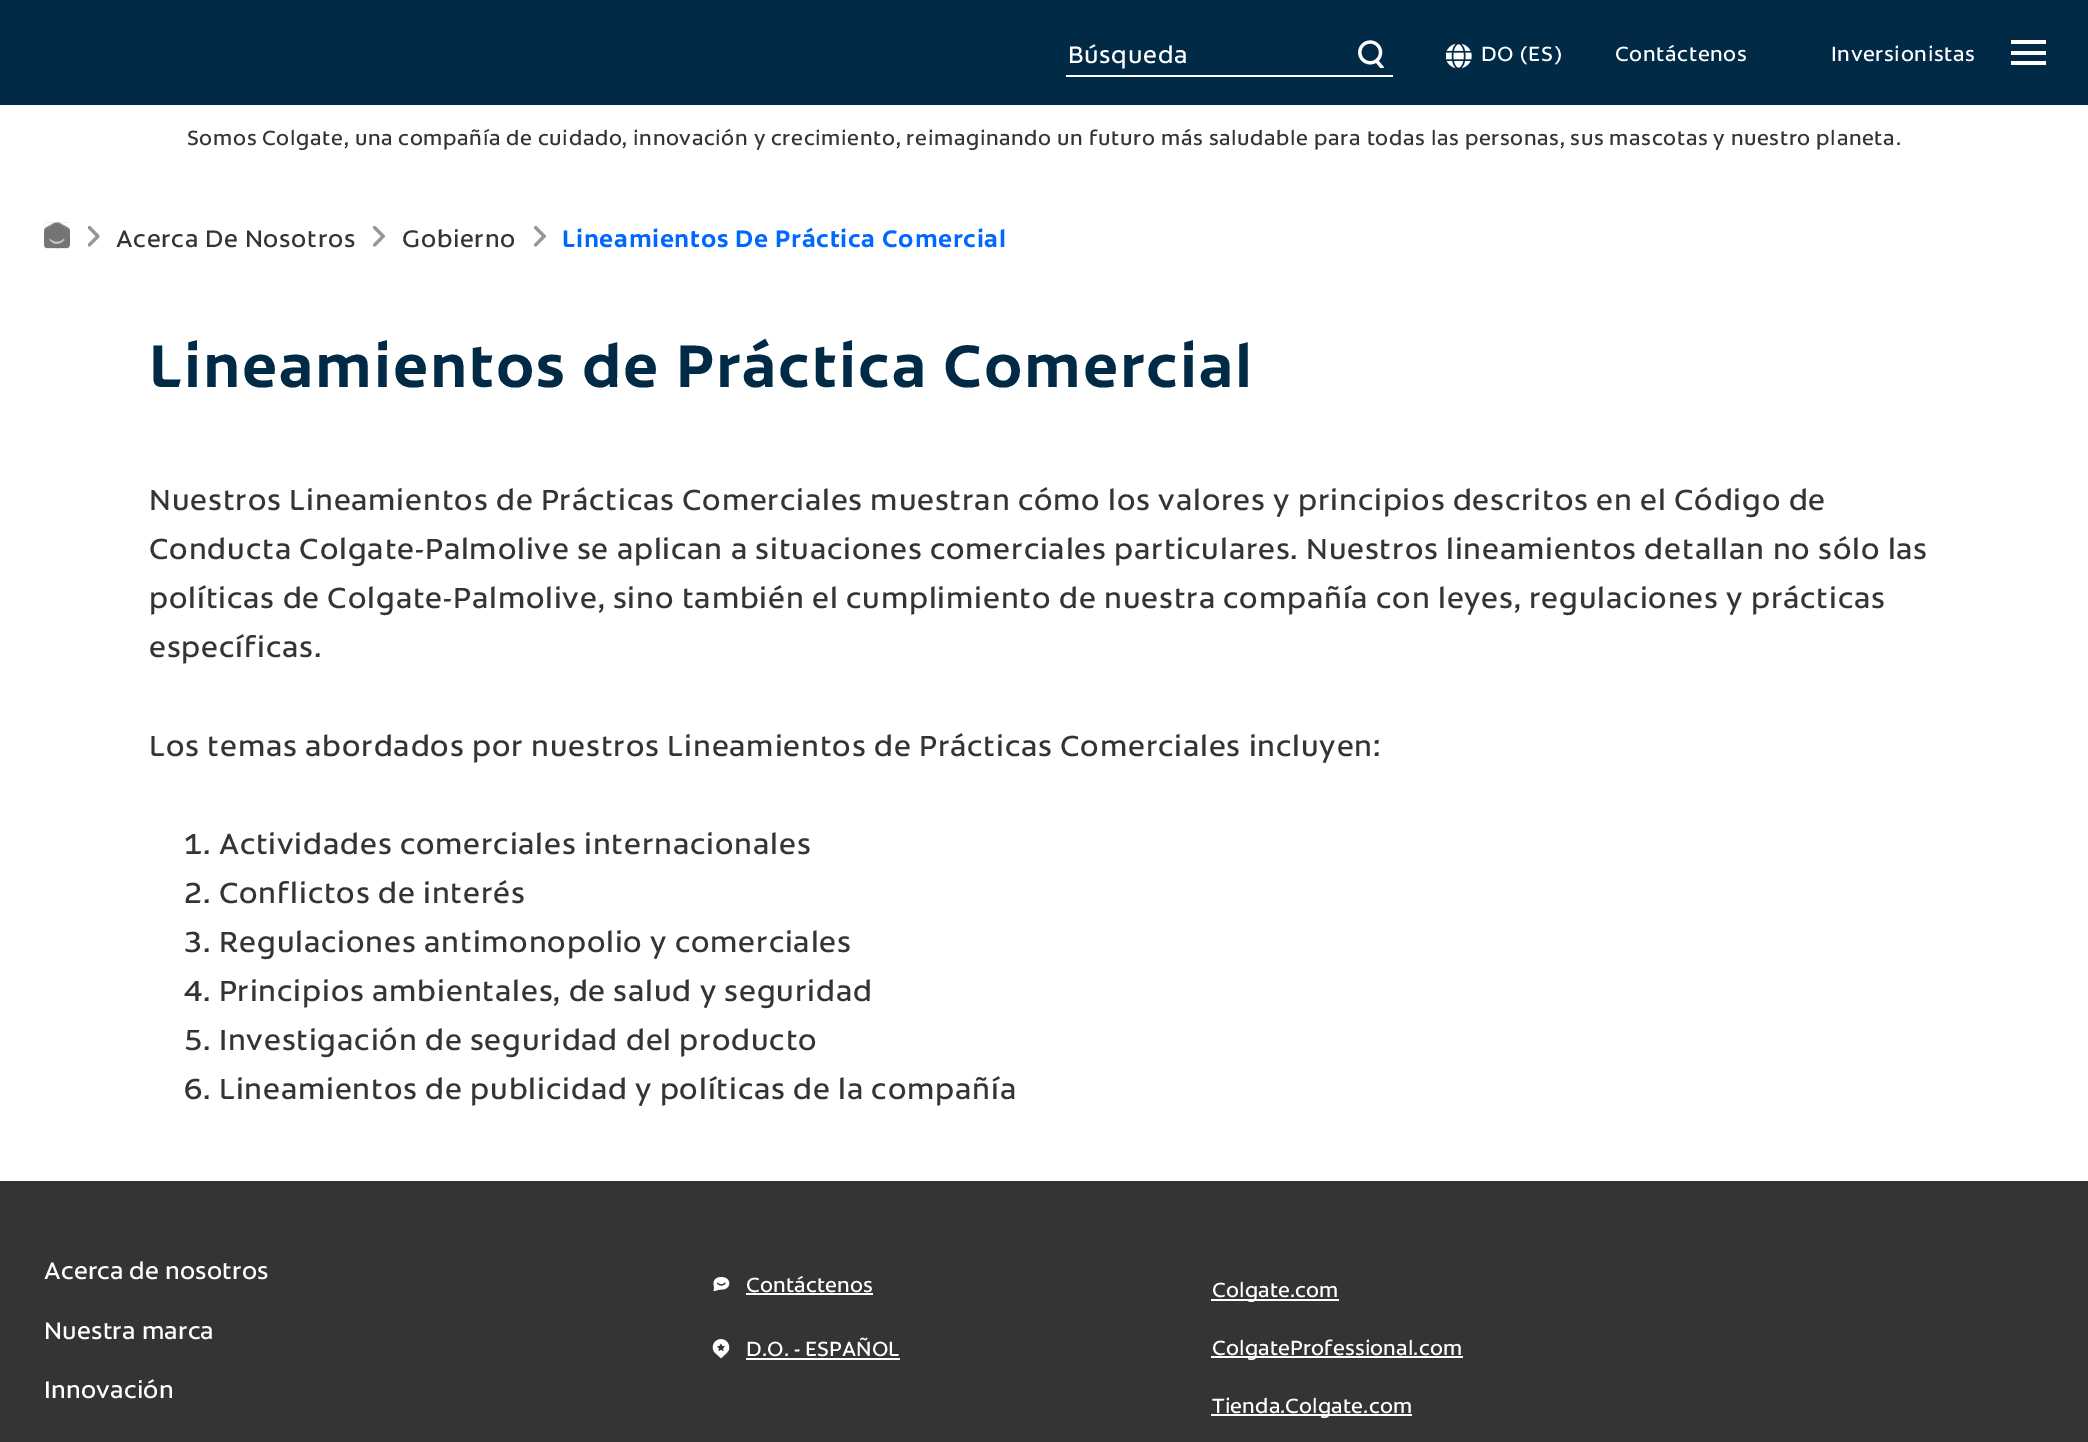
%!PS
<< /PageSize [2088 1442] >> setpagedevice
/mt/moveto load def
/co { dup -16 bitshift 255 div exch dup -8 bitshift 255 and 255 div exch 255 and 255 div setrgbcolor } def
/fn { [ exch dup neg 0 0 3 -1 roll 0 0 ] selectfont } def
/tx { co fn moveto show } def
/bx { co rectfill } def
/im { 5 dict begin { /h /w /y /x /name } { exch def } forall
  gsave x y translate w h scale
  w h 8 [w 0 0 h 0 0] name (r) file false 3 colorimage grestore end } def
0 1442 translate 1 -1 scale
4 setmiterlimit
0 0 2088 1442 16#FFFFFF bx
0 0 2088 105 16#002A46 bx
(media/1.raw) 1358 40 26 28 im
1066 75 327 2 16#FFFFFF bx
(media/2.raw) 1446 44 26 24 im
2011 40 35 4 16#FFFFFF bx
2011 51 35 4 16#FFFFFF bx
2011 61 35 4 16#FFFFFF bx
(media/3.raw) 44 222 26 27 im
(media/4.raw) 88 226 12 21 im
(media/5.raw) 373 226 12 21 im
(media/5.raw) 534 226 12 21 im
0 1181 2088 261 16#343434 bx
(media/6.raw) 713 1277 17 15 im
746 1293 127 2 16#FFFFFF bx
(media/7.raw) 712 1339 18 20 im
746 1358 154 2 16#FFFFFF bx
1211 1299 128 2 16#FFFFFF bx
1211 1356 252 2 16#FFFFFF bx
1211 1414 201 2 16#FFFFFF bx
(Búsqueda) 1068 63 /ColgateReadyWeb-Regular 24.5 16#FFFFFF tx
(DO \(ES\)) 1481 61 /ColgateReadyWeb-Regular 21 16#FFFFFF tx
(Contáctenos) 1615 61 /ColgateReadyWeb-Regular 21 16#FFFFFF tx
(Inversionistas) 1831 61 /ColgateReadyWeb-Regular 21 16#FFFFFF tx
(Somos Colgate, una compañía de cuidado, innovación y crecimiento, reimaginando un futuro más saludable para todas las personas, sus mascotas y nuestro planeta.) 187 145 /ColgateReadyWeb-Regular 21 16#343434 tx
(Acerca De Nosotros) 116 247 /ColgateReadyWeb-Regular 24.5 16#343434 tx
(Gobierno) 402 247 /ColgateReadyWeb-Regular 24.5 16#343434 tx
(Lineamientos De Práctica Comercial) 562 247 /ColgateReadyWeb-Bold 24.5 16#0068FF tx
(Lineamientos de Práctica Comercial) 149 387 /ColgateReadyWeb-Bold 61.25 16#002A46 tx
(Nuestros Lineamientos de Prácticas Comerciales muestran cómo los valores y principios descritos en el Código de) 149 510 /ColgateReadyWeb-Regular 29.75 16#343434 tx
(Conducta Colgate-Palmolive se aplican a situaciones comerciales particulares. Nuestros lineamientos detallan no sólo las) 149 559 /ColgateReadyWeb-Regular 29.75 16#343434 tx
(políticas de Colgate-Palmolive, sino también el cumplimiento de nuestra compañía con leyes, regulaciones y prácticas) 149 608 /ColgateReadyWeb-Regular 29.75 16#343434 tx
(específicas.) 149 657 /ColgateReadyWeb-Regular 29.75 16#343434 tx
(Los temas abordados por nuestros Lineamientos de Prácticas Comerciales incluyen:) 149 756 /ColgateReadyWeb-Regular 29.75 16#343434 tx
(1. Actividades comerciales internacionales) 184 854 /ColgateReadyWeb-Regular 29.75 16#343434 tx
(2. Conflictos de interés) 184 903 /ColgateReadyWeb-Regular 29.75 16#343434 tx
(3. Regulaciones antimonopolio y comerciales) 184 952 /ColgateReadyWeb-Regular 29.75 16#343434 tx
(4. Principios ambientales, de salud y seguridad) 184 1001 /ColgateReadyWeb-Regular 29.75 16#343434 tx
(5. Investigación de seguridad del producto) 184 1050 /ColgateReadyWeb-Regular 29.75 16#343434 tx
(6. Lineamientos de publicidad y políticas de la compañía) 184 1099 /ColgateReadyWeb-Regular 29.75 16#343434 tx
/ColgateReadyWeb-Regular 24.5 fn
16#FFFFFF co
44 1279 mt -.5 0 (Acerca de nosotros) ashow
44 1339 mt -.5 0 (Nuestra marca) ashow
44 1398 mt -.5 0 (Innovación) ashow
/ColgateReadyWeb-Regular 21 fn
746 1292 mt -.5 0 (Contáctenos) ashow
746 1356 mt -.5 0 (D.O. - ESPAÑOL) ashow
1212 1297 mt -.5 0 (Colgate.com) ashow
1212 1355 mt -.5 0 (ColgateProfessional.com) ashow
1212 1413 mt -.5 0 (Tienda.Colgate.com) ashow
showpage
